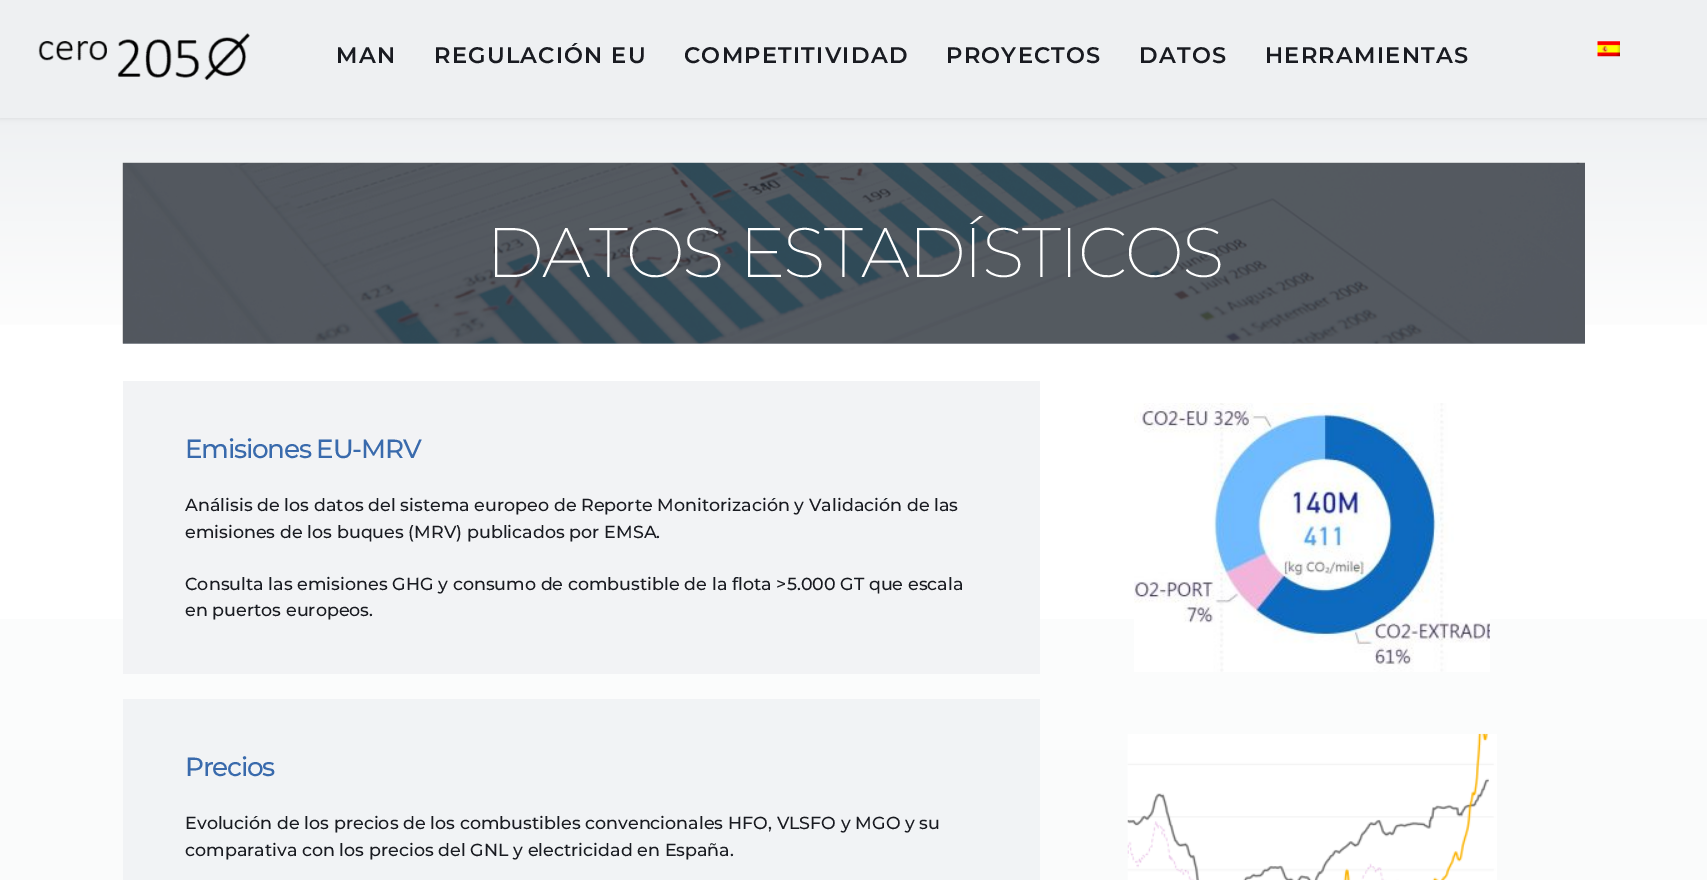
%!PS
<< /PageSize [1707 880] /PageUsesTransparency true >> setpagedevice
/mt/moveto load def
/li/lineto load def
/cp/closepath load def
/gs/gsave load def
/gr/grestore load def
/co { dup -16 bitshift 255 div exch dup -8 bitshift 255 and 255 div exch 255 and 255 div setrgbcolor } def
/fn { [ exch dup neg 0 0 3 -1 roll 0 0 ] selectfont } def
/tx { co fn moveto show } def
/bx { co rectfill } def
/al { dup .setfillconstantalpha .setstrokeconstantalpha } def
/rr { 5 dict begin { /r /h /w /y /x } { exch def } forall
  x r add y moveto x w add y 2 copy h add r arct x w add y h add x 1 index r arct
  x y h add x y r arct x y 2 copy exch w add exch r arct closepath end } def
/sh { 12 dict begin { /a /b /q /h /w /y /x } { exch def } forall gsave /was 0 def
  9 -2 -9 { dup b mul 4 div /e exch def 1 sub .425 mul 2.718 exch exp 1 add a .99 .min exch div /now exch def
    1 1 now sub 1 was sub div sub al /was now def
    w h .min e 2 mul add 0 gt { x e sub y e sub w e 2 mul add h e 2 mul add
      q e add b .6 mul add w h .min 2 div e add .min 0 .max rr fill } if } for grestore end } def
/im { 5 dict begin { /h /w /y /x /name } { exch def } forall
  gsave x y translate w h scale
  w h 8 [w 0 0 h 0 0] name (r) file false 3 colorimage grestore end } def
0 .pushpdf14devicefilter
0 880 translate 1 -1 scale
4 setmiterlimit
0 0 1707 880 16#FFFFFF bx
gs 0 118 mt 1707 118 li 1707 325 li 0 325 li cp clip newpath
<< /ShadingType 2 /ColorSpace /DeviceRGB /Coords [854 117 854 363] /Extend [true true] /Function << /FunctionType 2 /Domain [0 1] /C0 [.937 .945 .953] /C1 [1 1 1] /N 1 >> >> shfill gr
16#000000 co
0 0 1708 118 0 3 .1 sh
0 0 1707 118 16#EEF0F2 bx
(media/1.raw) 38 33 212 47 im
(media/2.raw) 1597 41 23 16 im
gs 123 343 mt 1585 343 li 1585 344 li 123 344 li cp clip newpath
<< /ShadingType 2 /ColorSpace /DeviceRGB /Coords [854 117 854 363] /Extend [true true] /Function << /FunctionType 2 /Domain [0 1] /C0 [.722 .745 .78] /C1 [.765 .788 .812] /N 1 >> >> shfill gr
(media/3.raw) 122 162 1463 182 im
gs 0 619 mt 1707 619 li 1707 880 li 0 880 li cp clip newpath
<< /ShadingType 2 /ColorSpace /DeviceRGB /Coords [854 362 854 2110] /Extend [true true] /Function << /FunctionType 2 /Domain [0 1] /C0 [1 1 1] /C1 [.933 .941 .949] /N 1 >> >> shfill gr
gs 123 381 mt 1040 381 li 1040 674 li 123 674 li cp clip newpath
<< /ShadingType 2 /ColorSpace /DeviceRGB /Coords [854 362 854 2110] /Extend [true true] /Function << /FunctionType 2 /Domain [0 1] /C0 [.953 .957 .965] /C1 [.933 .941 .949] /N 1 >> >> shfill gr
(media/4.raw) 1134 403 356 269 im
123 699 917 181 16#F1F3F5 bx
(media/5.raw) 1127 733 370 147 im
/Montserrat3-Thin 22.5 fn
16#191B21 co
336 63 mt 1.25 0 (MAN) ashow
434 63 mt 1.25 0 (REGULACIÓN EU) ashow
684 63 mt 1.25 0 (COMPETITIVIDAD) ashow
946 63 mt 1.25 0 (PROYECTOS) ashow
1139 63 mt 1.25 0 (DATOS) ashow
1265 63 mt 1.25 0 (HERRAMIENTAS) ashow
/Montserrat-Thin 70 fn
16#FFFFFF co
486 277 mt -1.9 0 (DATOS ESTADÍSTICOS) ashow
/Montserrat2-Thin 26.25 fn
16#396AAC co
185 458 mt -1.25 0 (Emisiones EU-MRV) ashow
(Análisis de los datos del sistema europeo de Reporte Monitorización y Validación de las) 185 511 /Montserrat2-Thin 17.5 16#191B21 tx
(emisiones de los buques \(MRV\) publicados por EMSA.) 185 538 /Montserrat2-Thin 17.5 16#191B21 tx
(Consulta las emisiones GHG y consumo de combustible de la flota >5.000 GT que escala) 185 590 /Montserrat2-Thin 17.5 16#191B21 tx
(en puertos europeos.) 185 616 /Montserrat2-Thin 17.5 16#191B21 tx
/Montserrat2-Thin 26.25 fn
16#396AAC co
185 776 mt -1.25 0 (Precios) ashow
(Evolución de los precios de los combustibles convencionales HFO, VLSFO y MGO y su) 185 829 /Montserrat2-Thin 17.5 16#191B21 tx
(comparativa con los precios del GNL y electricidad en España.) 185 856 /Montserrat2-Thin 17.5 16#191B21 tx
.poppdf14devicefilter showpage
